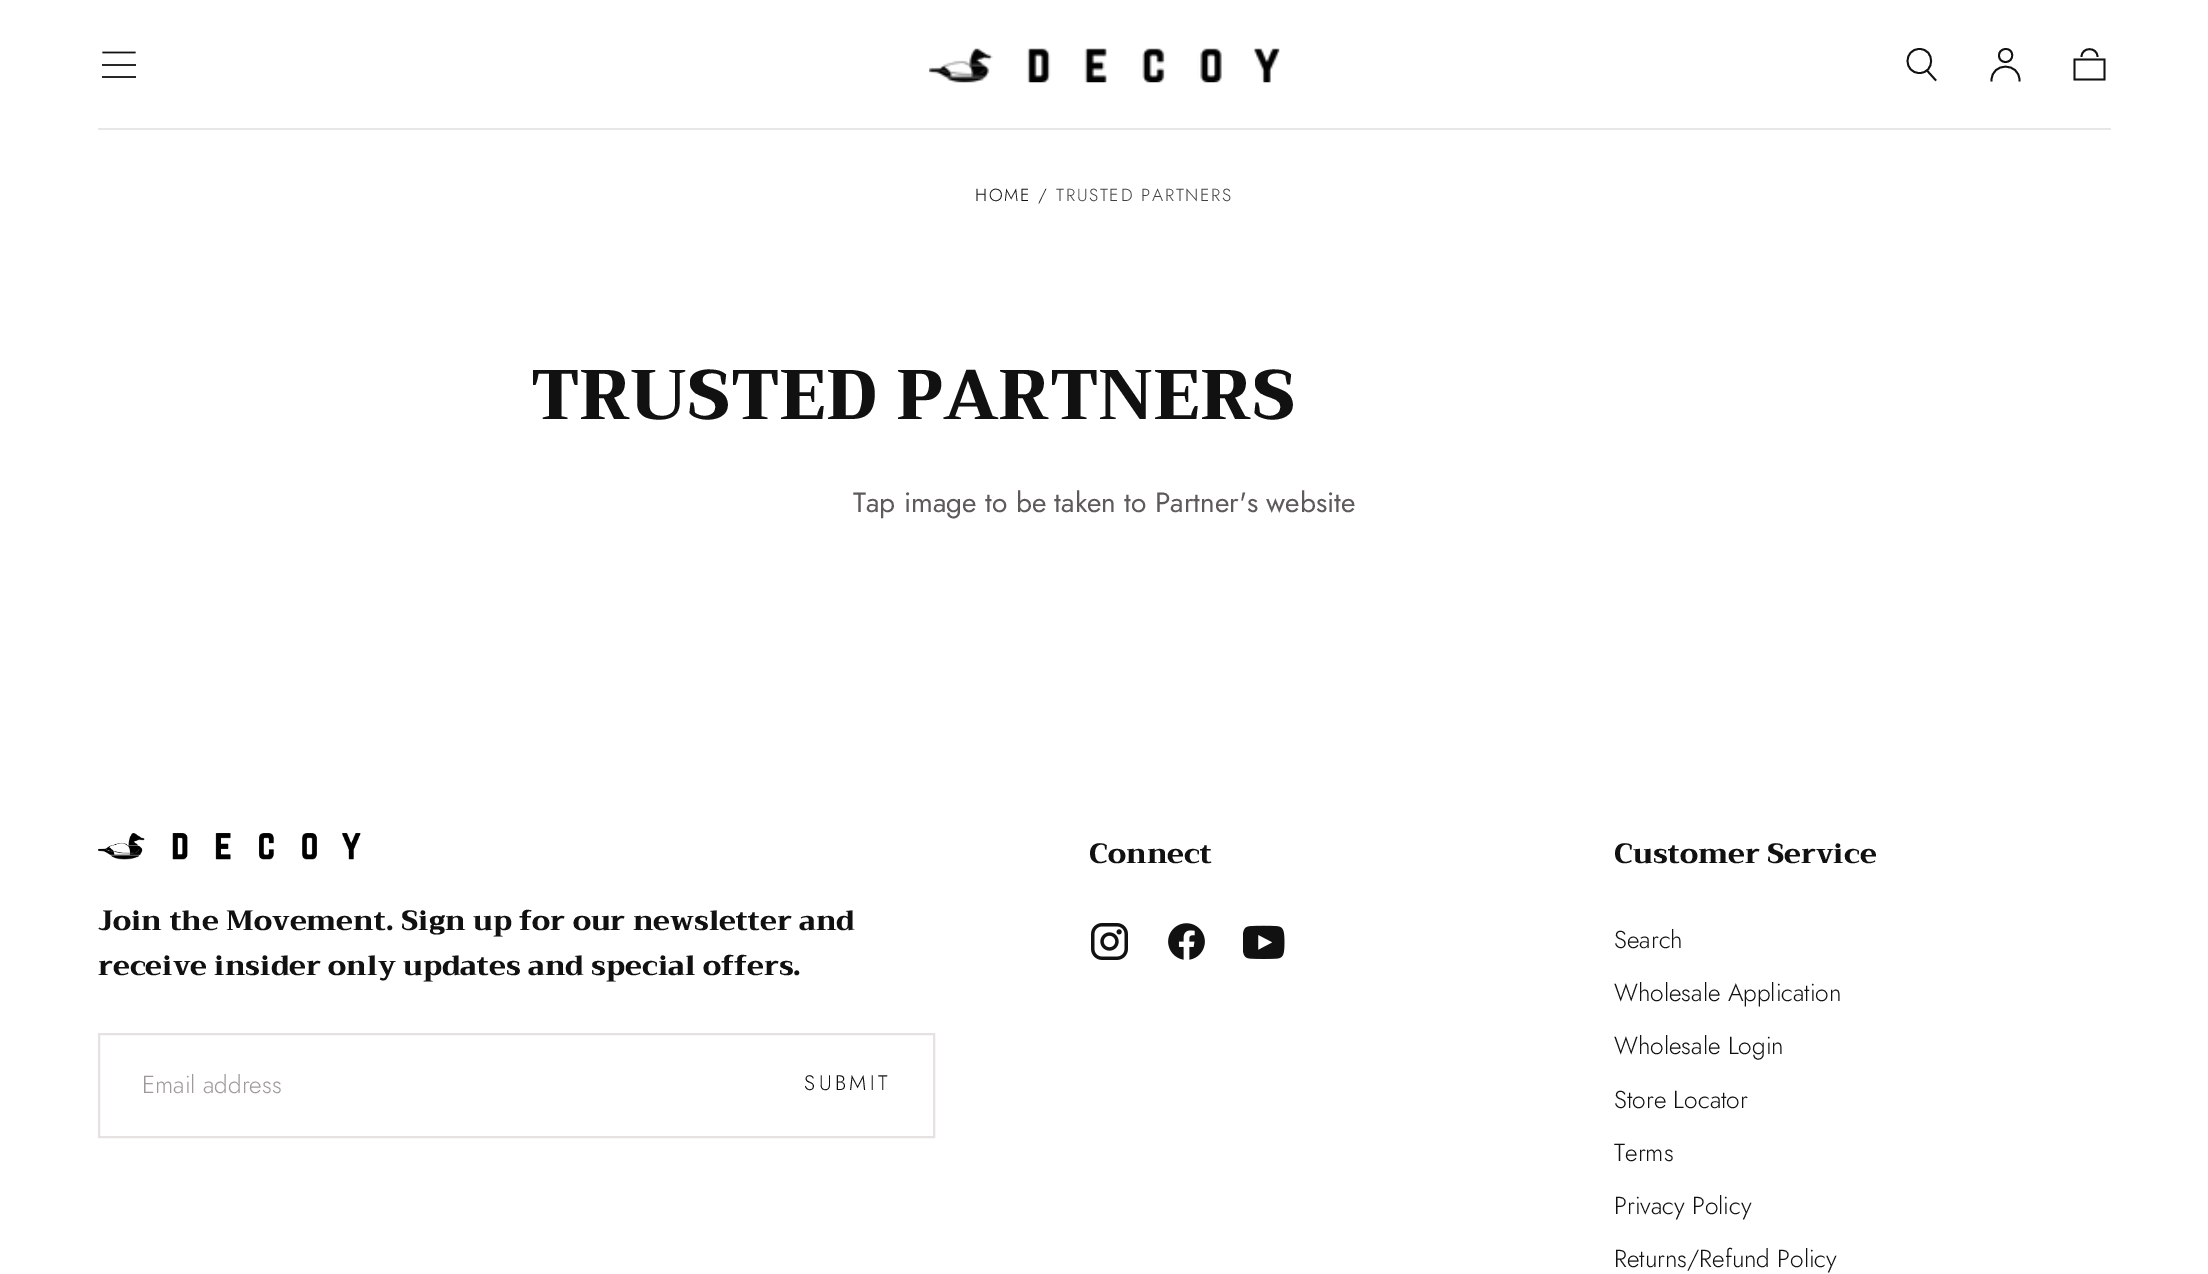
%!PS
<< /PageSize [2208 1274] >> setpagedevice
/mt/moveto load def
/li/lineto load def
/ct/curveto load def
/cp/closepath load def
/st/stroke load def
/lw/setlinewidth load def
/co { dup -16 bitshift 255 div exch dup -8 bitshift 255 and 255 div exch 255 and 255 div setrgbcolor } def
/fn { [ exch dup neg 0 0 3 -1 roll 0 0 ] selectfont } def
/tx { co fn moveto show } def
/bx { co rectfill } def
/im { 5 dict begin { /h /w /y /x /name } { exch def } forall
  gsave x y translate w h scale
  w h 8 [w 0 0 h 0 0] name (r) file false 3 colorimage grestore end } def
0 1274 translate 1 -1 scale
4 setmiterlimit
0 0 2208 1274 16#FFFFFF bx
(media/1.raw) 102 51 34 27 im
(media/2.raw) 929 48 351 35 im
16#111111 co
1.8 lw
1926.5 70 mt 1936 80.5 li 1919.5 73 mt 1935 73 1935 49 1919.5 49 ct 1903.5 49 1903.5 73 1919.5 73 ct cp st
2 setlinecap
1991.5 80.5 mt 1991.5 62 2019.5 62 2019.5 80.5 ct 2005.5 62 mt 2014.5 62 2014.5 48.5 2005.5 49 ct 1996.5 49.5 1997 62 2005.5 62 ct cp st
0 setlinecap
2104.5 79.5 mt 2074.5 79.5 li 2074.5 59.5 li 2104.5 59.5 li cp 2097.5 57 mt 2097.5 46.5 2081.5 46.5 2081.5 57 ct st
98 128 2013 2 16#E7E7E7 bx
(media/3.raw) 98 833 263 27 im
16#E6E2E1 co
2 lw
99 1034 835 103 rectstroke
(media/4.raw) 1091 923 37 37 im
(media/5.raw) 1168 923 37 37 im
(media/6.raw) 1243 925 42 34 im
/Jost-Light 17.5 fn
16#111111 co
975 201 mt 1.75 0 (HOME /) ashow
16#414141 co
1056 201 mt 1.75 0 (TRUSTED PARTNERS) ashow
(TRUSTED PARTNERS) 531 419 /Trirong-ExtraBold 70 16#111111 tx
(Tap image to be taken to Partner's website) 853 512 /Jost-Regular 28 16#5E5A59 tx
(Join the Movement. Sign up for our newsletter and) 98 930 /Trirong-ExtraBold 28 16#111111 tx
(receive insider only updates and special offers.) 98 975 /Trirong-ExtraBold 28 16#111111 tx
(Email address) 142 1093 /Jost-Light 24.5 16#9E9A99 tx
/Jost-Light 21 fn
16#111111 co
804 1090 mt 3.5 0 (SUBMIT) ashow
(Connect) 1089 863 /Trirong-ExtraBold 28 16#111111 tx
(Customer Service) 1614 863 /Trirong-ExtraBold 28 16#111111 tx
(Search) 1614 948 /Jost-Light 24.5 16#111111 tx
(Wholesale Application) 1614 1001 /Jost-Light 24.5 16#111111 tx
(Wholesale Login) 1614 1054 /Jost-Light 24.5 16#111111 tx
(Store Locator) 1614 1108 /Jost-Light 24.5 16#111111 tx
(Terms) 1614 1161 /Jost-Light 24.5 16#111111 tx
(Privacy Policy) 1614 1214 /Jost-Light 24.5 16#111111 tx
(Returns/Refund Policy) 1614 1267 /Jost-Light 24.5 16#111111 tx
showpage
